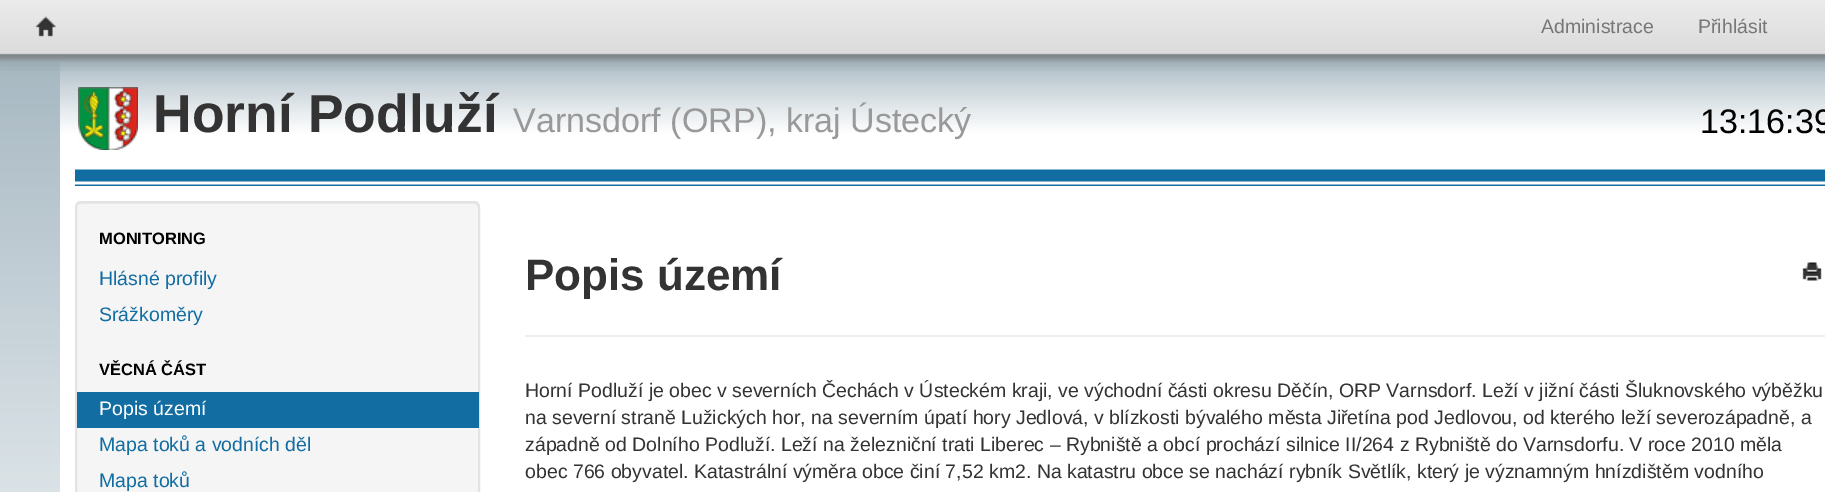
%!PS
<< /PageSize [1825 492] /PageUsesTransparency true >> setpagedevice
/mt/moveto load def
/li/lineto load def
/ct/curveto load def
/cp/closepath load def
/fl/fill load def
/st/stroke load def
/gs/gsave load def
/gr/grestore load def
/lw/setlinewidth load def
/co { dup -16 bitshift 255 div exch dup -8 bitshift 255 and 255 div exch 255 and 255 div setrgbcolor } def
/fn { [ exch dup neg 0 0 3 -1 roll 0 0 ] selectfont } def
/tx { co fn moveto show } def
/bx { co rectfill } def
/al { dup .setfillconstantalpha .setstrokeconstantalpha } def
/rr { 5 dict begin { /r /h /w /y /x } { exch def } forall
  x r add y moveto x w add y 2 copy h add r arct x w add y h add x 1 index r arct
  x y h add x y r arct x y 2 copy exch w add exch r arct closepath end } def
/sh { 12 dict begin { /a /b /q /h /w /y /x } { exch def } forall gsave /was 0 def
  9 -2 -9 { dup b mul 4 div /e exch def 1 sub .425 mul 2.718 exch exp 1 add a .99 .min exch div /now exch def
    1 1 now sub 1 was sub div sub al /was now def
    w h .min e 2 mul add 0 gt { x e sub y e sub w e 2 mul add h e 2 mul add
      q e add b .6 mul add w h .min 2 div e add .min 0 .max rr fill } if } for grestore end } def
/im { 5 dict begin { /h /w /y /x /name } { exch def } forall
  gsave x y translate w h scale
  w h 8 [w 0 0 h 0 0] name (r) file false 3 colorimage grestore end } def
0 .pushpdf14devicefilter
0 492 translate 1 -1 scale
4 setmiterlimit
0 0 1825 492 16#FFFFFF bx
(media/1.raw) 0 53 1825 439 im
(media/4.raw) 60 61 1765 431 im
(media/6.raw) 78 87 60 63 im
gs
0 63 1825 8 rectclip
16#000000 co
0 2 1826 63 0 7.5 .1 sh
gr
(media/2.raw) 0 0 1825 63 im
(media/3.raw) 35 16 21 21 im
(media/5.raw) 75 169 1750 17 im
16#F5F5F5 co
75 201 405 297 6 rr fl
16#E9E9E9 co
81 204 mt 474 204 li 476 204 478 206 478 208 ct 478 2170 li 477 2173 li 478 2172 479 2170 479 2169 ct 479 208 li 479 205 477 203 474 203 ct 82 203 li 80 203 79 204 78 205 ct cp fl
16#E3E3E3 co
2 lw
76 202 403 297 5 rr st
77 392 402 36 16#126DA2 bx
525 335 1300 2 16#EEEEEE bx
(media/7.raw) 1802 262 20 19 im
(Administrace) 1541 33 /LiberationSans-Regular 19.5 16#777777 tx
(Přihlásit) 1698 33 /LiberationSans-Regular 19.5 16#777777 tx
(Horní Podluží) 153 132 /LiberationSans-Bold 53.5 16#333333 tx
(Varnsdorf \(ORP\), kraj Ústecký) 513 132 /LiberationSans-Regular 34.1 16#999999 tx
(13:16:39) 1700 133 /LiberationSans-Regular 34.1 16#000000 tx
(MONITORING) 99 244 /LiberationSans-Bold 16.5 16#000000 tx
(Hlásné profily) 99 285 /LiberationSans-Regular 19.5 16#126DA2 tx
(Srážkoměry) 99 321 /LiberationSans-Regular 19.5 16#126DA2 tx
(VĚCNÁ ČÁST) 99 375 /LiberationSans-Bold 16.5 16#000000 tx
(Popis území) 99 415 /LiberationSans-Regular 19.5 16#FFFFFF tx
(Mapa toků a vodních děl) 99 451 /LiberationSans-Regular 19.5 16#126DA2 tx
(Mapa toků) 99 487 /LiberationSans-Regular 19.5 16#126DA2 tx
(Popis území) 525 290 /LiberationSans-Bold 44 16#333333 tx
(Horní Podluží je obec v severních Čechách v Ústeckém kraji, ve východní části okresu Děčín, ORP Varnsdorf. Leží v jižní části Šluknovského výběžku) 525 397 /LiberationSans-Regular 19.5 16#333333 tx
(na severní straně Lužických hor, na severním úpatí hory Jedlová, v blízkosti bývalého města Jiřetína pod Jedlovou, od kterého leží severozápadně, a) 525 424 /LiberationSans-Regular 19.5 16#333333 tx
(západně od Dolního Podluží. Leží na železniční trati Liberec – Rybniště a obcí prochází silnice II/264 z Rybniště do Varnsdorfu. V roce 2010 měla) 525 451 /LiberationSans-Regular 19.5 16#333333 tx
(obec 766 obyvatel. Katastrální výměra obce činí 7,52 km2. Na katastru obce se nachází rybník Světlík, který je významným hnízdištěm vodního) 525 478 /LiberationSans-Regular 19.5 16#333333 tx
.poppdf14devicefilter showpage
